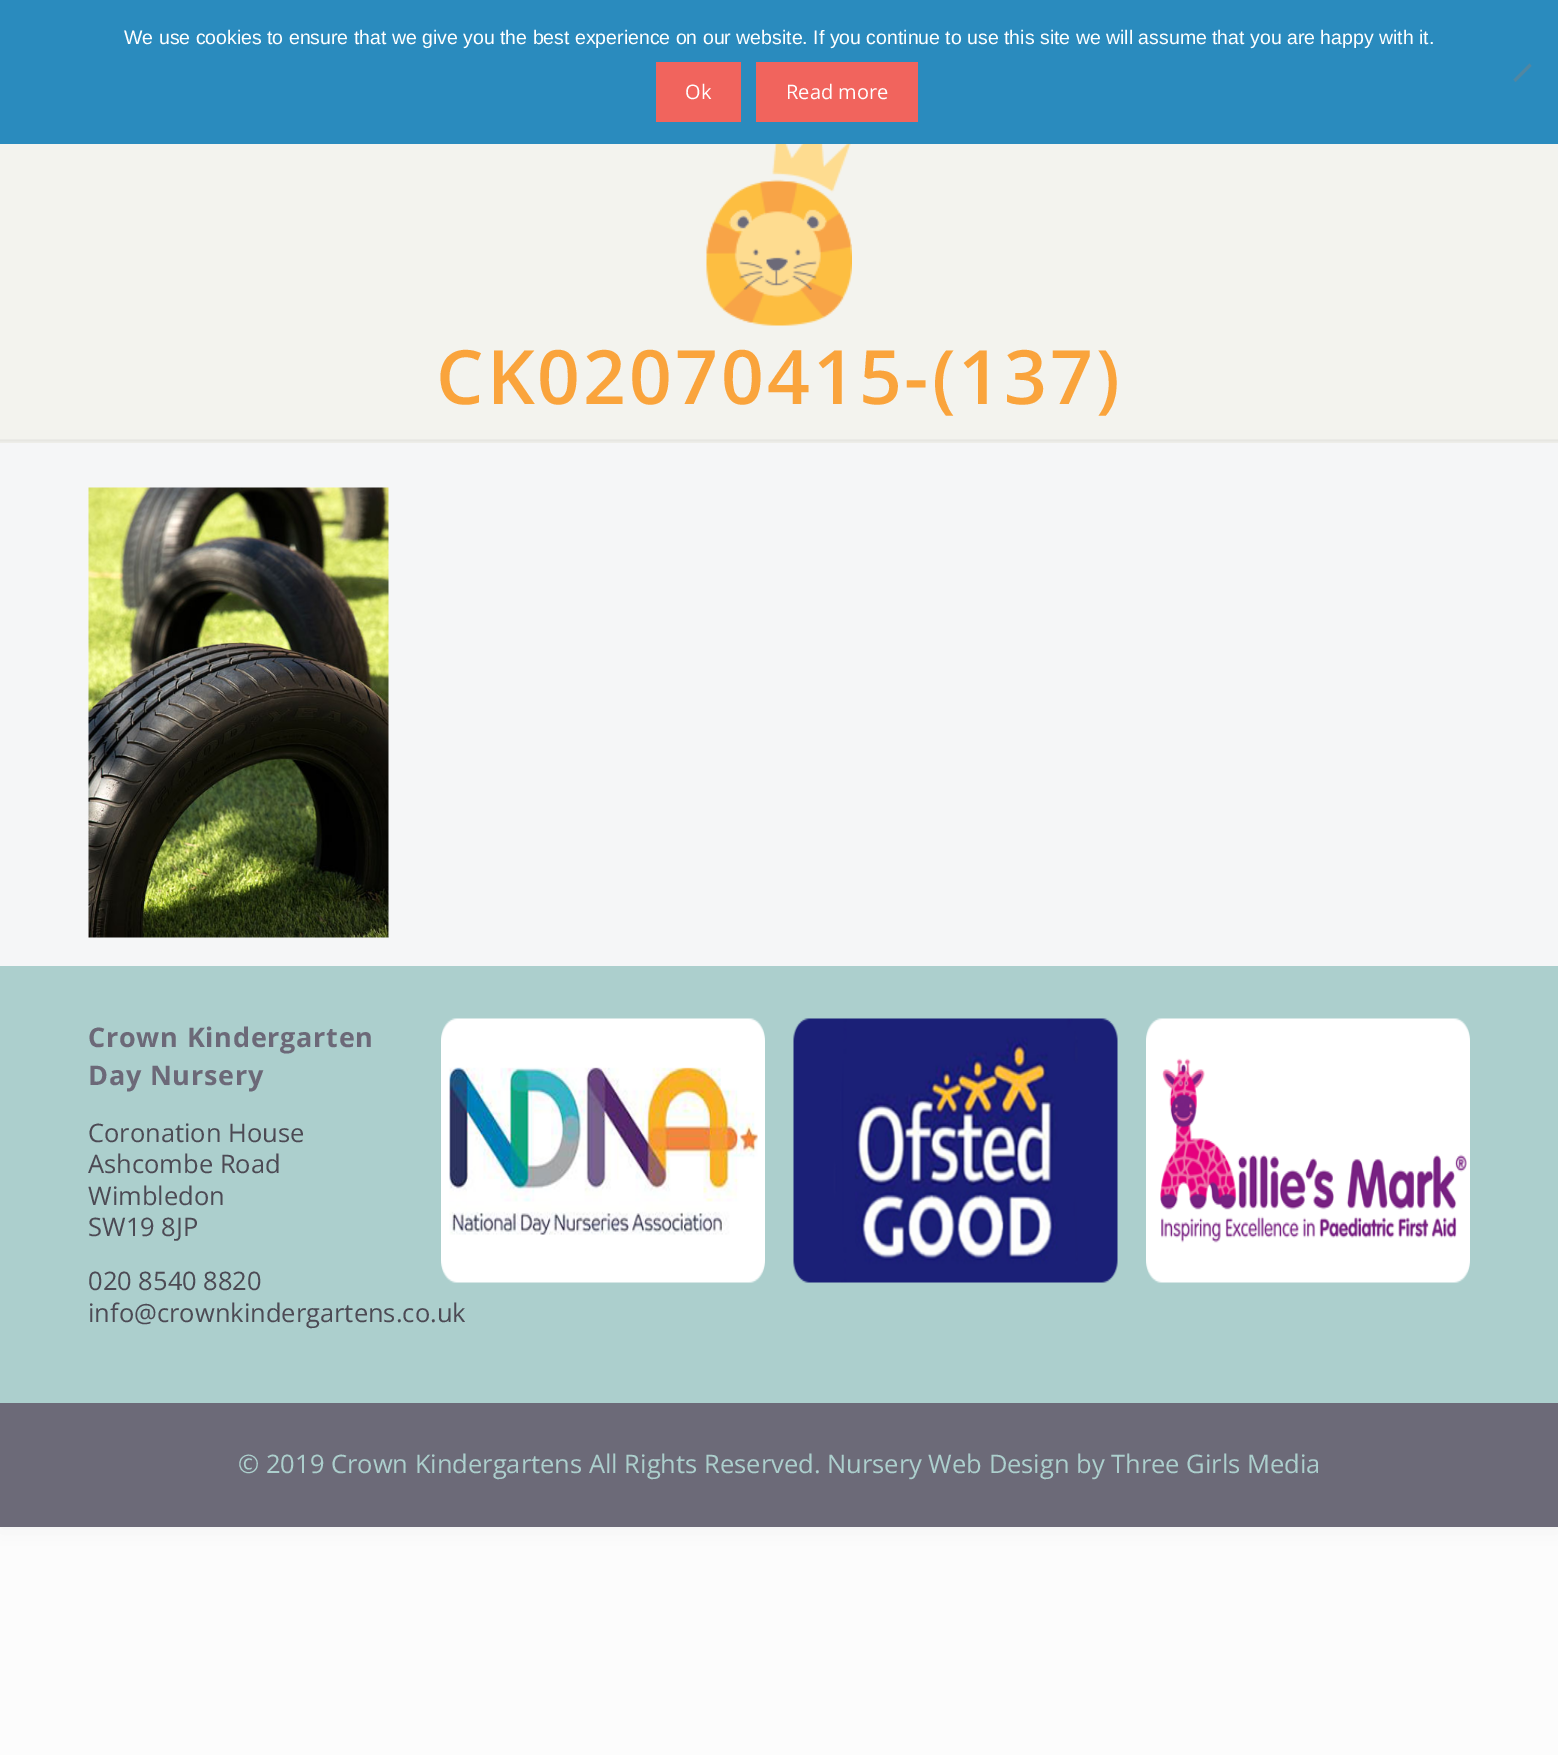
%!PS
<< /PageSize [1558 1755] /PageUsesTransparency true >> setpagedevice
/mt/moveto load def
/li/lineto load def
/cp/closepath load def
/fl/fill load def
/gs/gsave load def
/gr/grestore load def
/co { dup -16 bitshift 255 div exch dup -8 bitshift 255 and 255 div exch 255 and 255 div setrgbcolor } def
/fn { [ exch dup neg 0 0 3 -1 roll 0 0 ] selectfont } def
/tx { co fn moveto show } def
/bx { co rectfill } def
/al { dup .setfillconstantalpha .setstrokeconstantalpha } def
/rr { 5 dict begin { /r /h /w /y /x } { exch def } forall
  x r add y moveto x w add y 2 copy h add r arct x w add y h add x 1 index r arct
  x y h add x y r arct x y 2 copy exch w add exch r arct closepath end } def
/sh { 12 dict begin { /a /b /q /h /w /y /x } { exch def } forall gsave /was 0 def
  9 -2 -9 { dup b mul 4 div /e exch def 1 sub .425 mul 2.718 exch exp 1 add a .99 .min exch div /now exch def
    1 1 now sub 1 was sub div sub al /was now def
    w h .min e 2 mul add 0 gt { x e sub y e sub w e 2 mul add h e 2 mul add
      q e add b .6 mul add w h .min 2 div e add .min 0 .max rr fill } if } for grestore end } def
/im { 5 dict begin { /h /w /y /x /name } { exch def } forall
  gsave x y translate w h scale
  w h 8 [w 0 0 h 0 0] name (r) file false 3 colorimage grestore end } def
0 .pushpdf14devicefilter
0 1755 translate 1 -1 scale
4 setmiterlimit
0 0 1558 1755 16#FCFCFC bx
16#000000 co
0 0 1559 1527 0 11 .06 sh
0 0 1558 144 16#2A8BBE bx
16#55869F co
1529.5 63.5 mt 1531.5 66 li 1515.5 82 li 1513.5 79.5 li cp fl
gs
1506 57 30 30 rectclip
0.07 al
16#2A8BBE co
1500 72 mt 1521 51 li 1542 72 li 1521 93 li cp fl
gr
656 62 85 60 16#F1645D bx
756 62 162 60 16#F1645D bx
0 443 1558 523 16#F5F6F7 bx
0 144 1558 299 16#F3F3EE bx
(media/1.raw) 706 144 146 182 im
(media/2.raw) 0 439 1558 4 im
(media/3.raw) 88 487 301 451 im
0 966 1558 437 16#ACCFCD bx
(media/4.raw) 441 1018 324 265 im
(media/5.raw) 793 1018 325 265 im
(media/6.raw) 1146 1018 324 265 im
0 1403 1558 124 16#6C6A78 bx
(We use cookies to ensure that we give you the best experience on our website. If you continue to use this site we will assume that you are happy with it.) 124 44 /LiberationSans-Regular 19.5 16#FFFFFF tx
(Ok) 685 99 /OpenSans-Regular 20 16#FFFFFF tx
(Read more) 786 99 /OpenSans-Regular 20 16#FFFFFF tx
/OpenSans-SemiBold 75 fn
16#FAA43C co
436 404 mt 3 0 (CK02070415-\(137\)) ashow
/OpenSans-Bold 27 fn
16#6C6978 co
88 1047 mt .75 0 (Crown Kindergarten) ashow
88 1085 mt .75 0 (Day Nursery) ashow
(Coronation House) 88 1142 /OpenSans-Regular 25.5 16#4C4A54 tx
(Ashcombe Road) 88 1173 /OpenSans-Regular 25.5 16#4C4A54 tx
(Wimbledon) 88 1205 /OpenSans-Regular 25.5 16#4C4A54 tx
(SW19 8JP) 88 1236 /OpenSans-Regular 25.5 16#4C4A54 tx
(020 8540 8820) 88 1290 /OpenSans-Regular 25.5 16#4C4A54 tx
(info@crownkindergartens.co.uk) 88 1322 /OpenSans-Regular 25.5 16#4C4A54 tx
(© 2019 Crown Kindergartens All Rights Reserved. Nursery Web Design by Three Girls Media) 238 1473 /OpenSans-Regular 25.5 16#ACCFCD tx
.poppdf14devicefilter showpage
